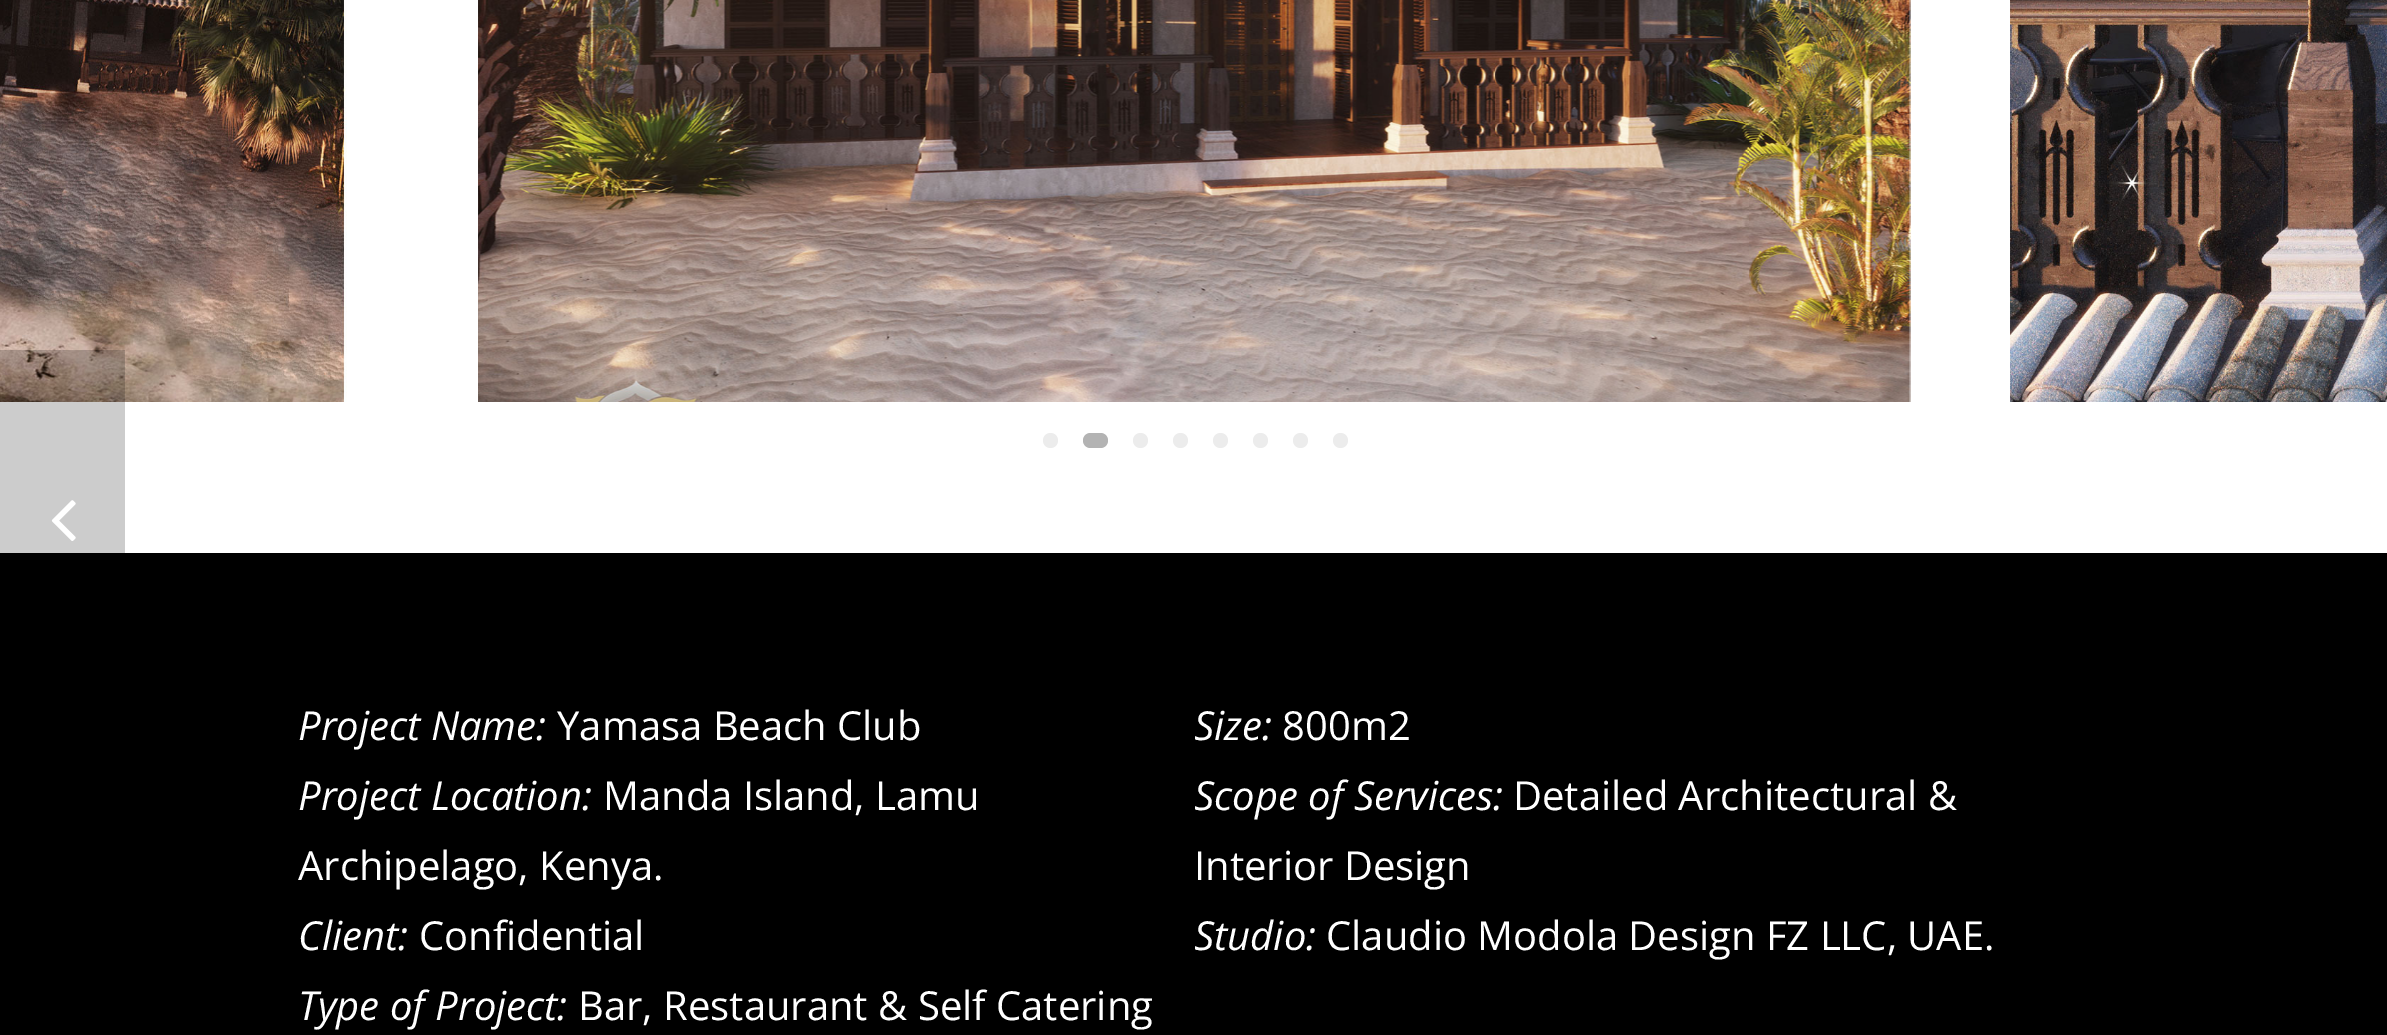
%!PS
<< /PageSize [2387 1035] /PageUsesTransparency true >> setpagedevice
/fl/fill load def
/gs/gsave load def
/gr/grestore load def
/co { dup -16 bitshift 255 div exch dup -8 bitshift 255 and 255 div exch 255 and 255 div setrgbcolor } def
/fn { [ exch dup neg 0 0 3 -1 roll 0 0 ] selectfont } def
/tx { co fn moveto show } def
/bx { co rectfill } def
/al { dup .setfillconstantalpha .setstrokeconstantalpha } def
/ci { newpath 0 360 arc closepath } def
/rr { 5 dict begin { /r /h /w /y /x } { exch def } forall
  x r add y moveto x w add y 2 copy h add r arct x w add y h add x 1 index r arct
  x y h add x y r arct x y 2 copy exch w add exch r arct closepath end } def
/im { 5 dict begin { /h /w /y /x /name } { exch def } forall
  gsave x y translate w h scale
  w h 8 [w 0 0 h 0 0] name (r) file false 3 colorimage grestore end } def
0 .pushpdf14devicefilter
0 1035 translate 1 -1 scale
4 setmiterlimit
0 0 2387 1035 16#FFFFFF bx
(media/1.raw) 0 0 347 402 im
(media/2.raw) 478 0 1433 402 im
(media/3.raw) 2010 0 377 402 im
16#ECECEC co
1050.5 440.5 7.5 ci fl
16#B3B3B3 co
1083 433 25 15 7.5 rr fl
16#ECECEC co
1140.5 440.5 7.5 ci fl
1180.5 440.5 7.5 ci fl
1220.5 440.5 7.5 ci fl
1260.5 440.5 7.5 ci fl
1300.5 440.5 7.5 ci fl
1340.5 440.5 7.5 ci fl
0.2 al
0 350 125 203 16#000000 bx
1 al
(media/4.raw) 51 500 25 41 im
0 553 2387 482 16#000000 bx
(Project Name:) 298 740 /OpenSans-Italic 40 16#FFFFFF tx
(Yamasa Beach Club) 557 740 /OpenSans-Regular 40 16#FFFFFF tx
(Project Location:) 298 810 /OpenSans-Italic 40 16#FFFFFF tx
(Manda Island, Lamu) 603 810 /OpenSans-Regular 40 16#FFFFFF tx
(Archipelago, Kenya.) 298 880 /OpenSans-Regular 40 16#FFFFFF tx
(Client:) 298 950 /OpenSans-Italic 40 16#FFFFFF tx
(Confidential) 419 950 /OpenSans-Regular 40 16#FFFFFF tx
(Type of Project:) 298 1020 /OpenSans-Italic 40 16#FFFFFF tx
(Bar, Restaurant & Self Catering) 578 1020 /OpenSans-Regular 40 16#FFFFFF tx
gs
1195 665 895 305 rectclip
(Size:) 1194 740 /OpenSans-Italic 40 16#FFFFFF tx
gr
(800m2) 1282 740 /OpenSans-Regular 40 16#FFFFFF tx
gs
1195 665 895 305 rectclip
(Scope of Services:) 1194 810 /OpenSans-Italic 40 16#FFFFFF tx
gr
(Detailed Architectural &) 1513 810 /OpenSans-Regular 40 16#FFFFFF tx
(Interior Design) 1194 880 /OpenSans-Regular 40 16#FFFFFF tx
gs
1195 665 895 305 rectclip
(Studio:) 1194 950 /OpenSans-Italic 40 16#FFFFFF tx
gr
(Claudio Modola Design FZ LLC, UAE.) 1326 950 /OpenSans-Regular 40 16#FFFFFF tx
.poppdf14devicefilter showpage
